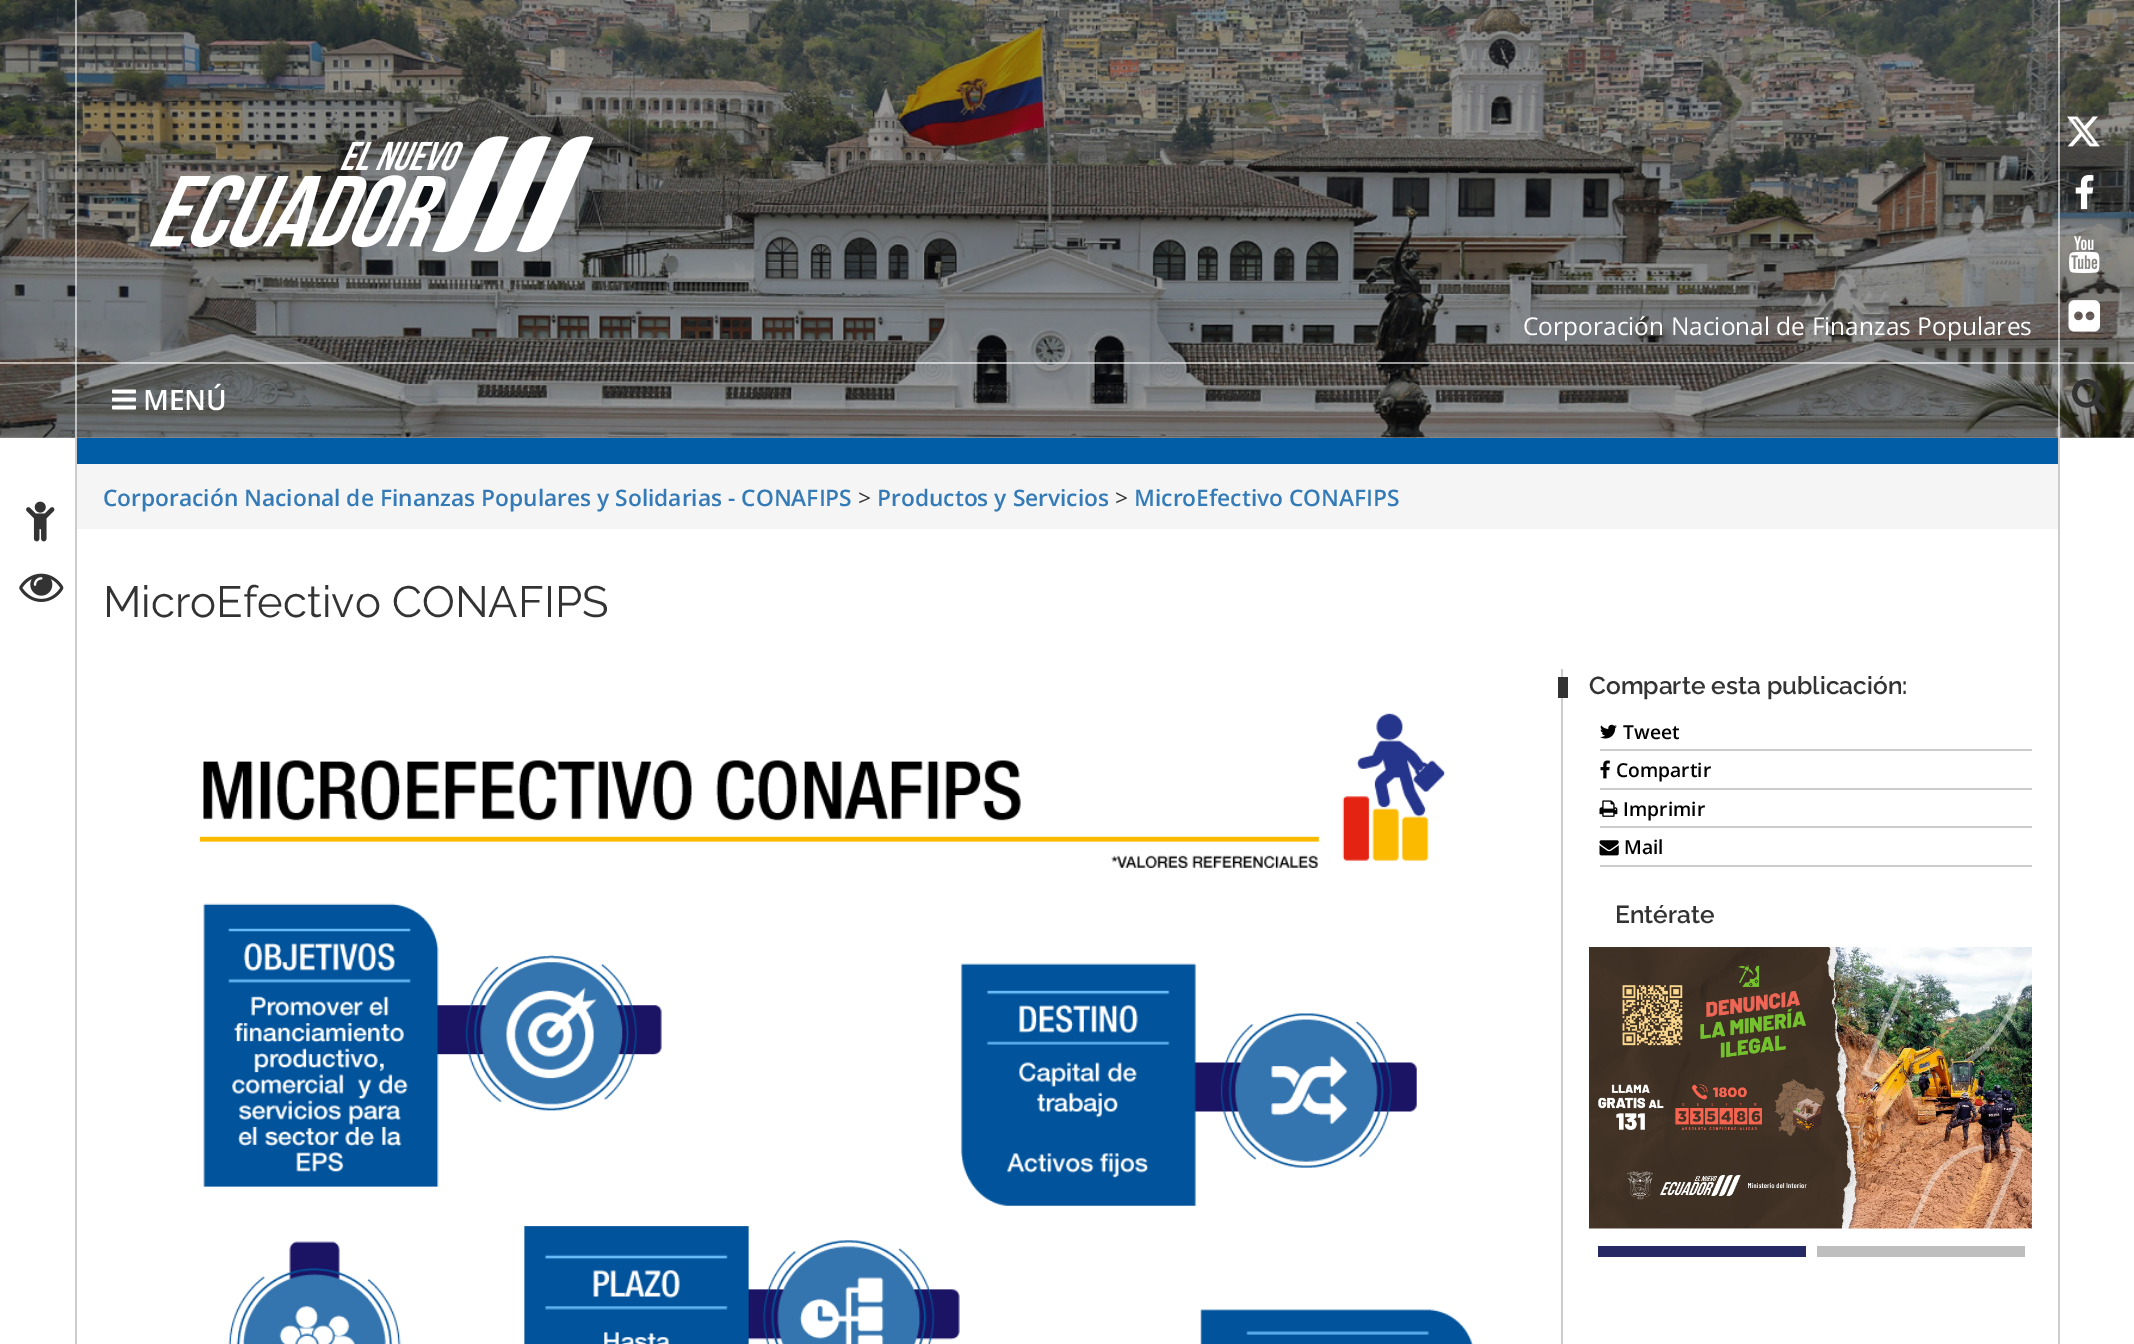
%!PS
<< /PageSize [2134 1344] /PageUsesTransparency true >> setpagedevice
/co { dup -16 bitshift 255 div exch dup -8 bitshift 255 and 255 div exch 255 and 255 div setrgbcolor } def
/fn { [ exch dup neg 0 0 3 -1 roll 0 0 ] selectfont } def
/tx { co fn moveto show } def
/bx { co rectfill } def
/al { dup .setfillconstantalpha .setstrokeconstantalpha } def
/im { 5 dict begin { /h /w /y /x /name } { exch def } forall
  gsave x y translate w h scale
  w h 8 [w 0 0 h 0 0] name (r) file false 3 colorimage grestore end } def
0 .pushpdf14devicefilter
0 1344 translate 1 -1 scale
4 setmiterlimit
0 0 2134 1344 16#FFFFFF bx
0 437 2134 1 16#999999 bx
(media/1.raw) 0 0 2134 438 im
0.6 al
2058 0 2 438 16#FFFFFF bx
75 0 2 438 16#FFFFFF bx
1 al
(media/2.raw) 149 136 445 117 im
(media/3.raw) 2067 116 33 31 im
(media/4.raw) 2075 175 19 35 im
(media/5.raw) 2069 236 31 37 im
(media/6.raw) 2068 300 32 32 im
0.6 al
0 362 2134 2 16#FFFFFF bx
1 al
(media/7.raw) 112 389 24 21 im
(media/8.raw) 2072 378 34 35 im
(media/9.raw) 26 501 29 41 im
(media/10.raw) 19 573 45 29 im
2058 438 2 906 16#CCCCCC bx
75 438 2 906 16#CCCCCC bx
77 438 1981 26 16#005DA6 bx
77 464 1981 65 16#F5F5F5 bx
1561 669 2 675 16#CCCCCC bx
(media/11.raw) 199 713 1274 631 im
1558 677 10 21 16#333333 bx
1600 749 432 2 16#CCCCCC bx
(media/12.raw) 1600 724 17 15 im
1600 788 432 2 16#CCCCCC bx
(media/13.raw) 1600 760 10 19 im
1600 826 432 2 16#CCCCCC bx
(media/14.raw) 1599 800 19 17 im
1600 865 432 2 16#CCCCCC bx
(media/15.raw) 1599 840 20 16 im
(media/16.raw) 1589 947 443 282 im
1598 1246 208 11 16#272965 bx
1817 1246 208 11 16#BEBEBE bx
(Corporación Nacional de Finanzas Populares) 1523 335 /OpenSans-Regular 24.5 16#FFFFFF tx
(MENÚ) 143 410 /OpenSans-SemiBold 28 16#FFFFFF tx
(Corporación Nacional de Finanzas Populares y Solidarias - CONAFIPS) 103 506 /OpenSans-SemiBold 22.75 16#337AB7 tx
(>) 858 506 /OpenSans-Regular 22.75 16#333333 tx
(Productos y Servicios) 877 506 /OpenSans-SemiBold 22.75 16#337AB7 tx
(>) 1115 506 /OpenSans-Regular 22.75 16#333333 tx
(MicroEfectivo CONAFIPS) 1134 506 /OpenSans-SemiBold 22.75 16#337AB7 tx
(MicroEfectivo CONAFIPS) 103 617 /Raleway-Thin 43.75 16#333333 tx
(Comparte esta publicación:) 1589 694 /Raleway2-Thin 24.5 16#333333 tx
(Tweet) 1623 739 /OpenSans-SemiBold 19.25 16#010101 tx
(Compartir) 1616 777 /OpenSans-SemiBold 19.25 16#010101 tx
(Imprimir) 1623 816 /OpenSans-SemiBold 19.25 16#010101 tx
(Mail) 1624 854 /OpenSans-SemiBold 19.25 16#010101 tx
(Entérate) 1615 923 /Raleway2-Thin 24.5 16#333333 tx
.poppdf14devicefilter showpage
